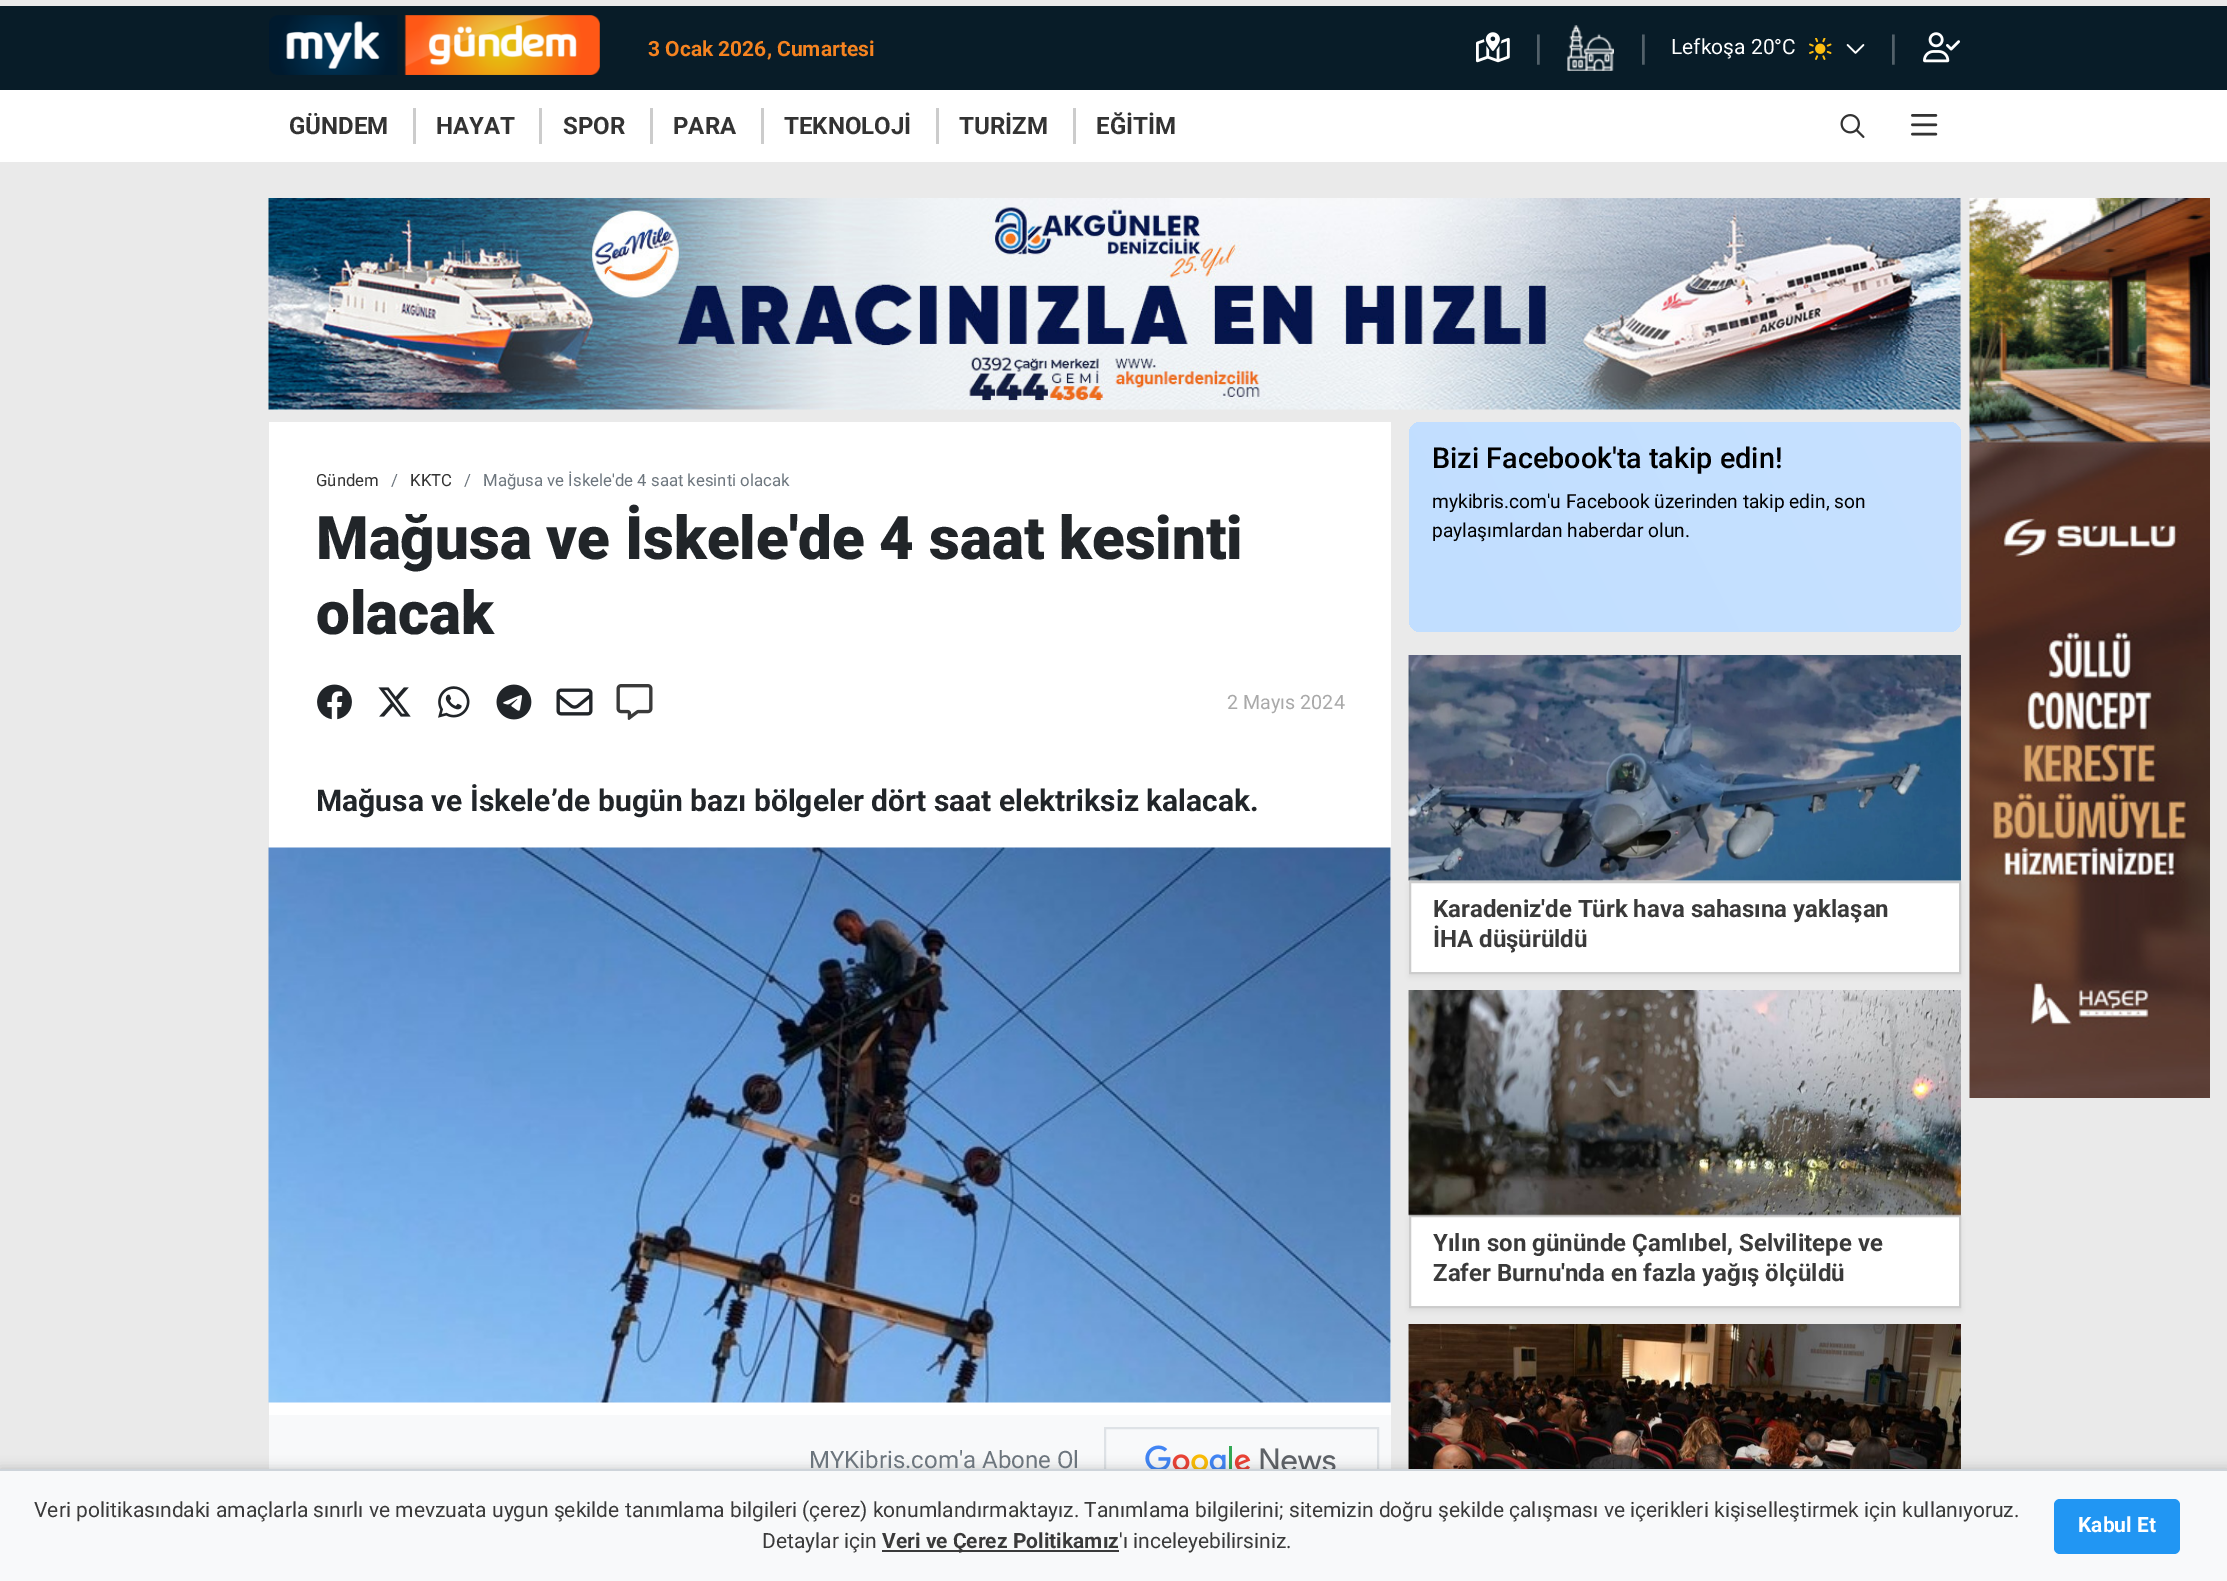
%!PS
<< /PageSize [2227 1581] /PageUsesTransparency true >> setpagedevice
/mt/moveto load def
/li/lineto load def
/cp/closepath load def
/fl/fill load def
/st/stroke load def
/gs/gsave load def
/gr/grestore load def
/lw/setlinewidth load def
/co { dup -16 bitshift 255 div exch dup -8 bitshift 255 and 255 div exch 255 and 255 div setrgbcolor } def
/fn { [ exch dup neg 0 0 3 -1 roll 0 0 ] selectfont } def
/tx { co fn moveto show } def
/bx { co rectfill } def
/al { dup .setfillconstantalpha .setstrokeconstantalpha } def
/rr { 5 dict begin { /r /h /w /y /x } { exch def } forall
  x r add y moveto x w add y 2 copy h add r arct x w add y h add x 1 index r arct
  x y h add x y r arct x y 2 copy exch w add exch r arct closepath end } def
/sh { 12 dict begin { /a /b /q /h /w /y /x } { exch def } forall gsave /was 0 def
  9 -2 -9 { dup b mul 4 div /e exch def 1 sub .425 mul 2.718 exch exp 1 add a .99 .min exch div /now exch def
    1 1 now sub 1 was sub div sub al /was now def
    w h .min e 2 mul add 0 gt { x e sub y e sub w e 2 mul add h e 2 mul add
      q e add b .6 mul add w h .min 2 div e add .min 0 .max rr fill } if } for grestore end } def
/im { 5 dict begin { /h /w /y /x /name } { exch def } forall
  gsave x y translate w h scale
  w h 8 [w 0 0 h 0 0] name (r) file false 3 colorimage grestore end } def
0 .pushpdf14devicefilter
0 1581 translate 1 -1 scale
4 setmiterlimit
0 0 2227 1581 16#EAEAEA bx
0 6 2227 84 16#081C28 bx
(media/1.raw) 269 15 331 60 im
(media/2.raw) 1476 32 34 31 im
(media/3.raw) 1567 25 47 46 im
(media/4.raw) 1809 38 23 22 im
(media/5.raw) 1846 44 19 10 im
(media/6.raw) 1923 32 37 31 im
0 90 2227 72 16#FFFFFF bx
413 108 3 36 16#CCCCCC bx
539 108 3 36 16#CCCCCC bx
650 108 3 36 16#CCCCCC bx
761 108 3 36 16#CCCCCC bx
936 108 3 36 16#CCCCCC bx
1073 108 3 36 16#CCCCCC bx
(media/7.raw) 1840 114 25 24 im
(media/8.raw) 1911 114 27 22 im
(media/9.raw) 268 198 1693 212 im
269 422 1122 993 16#FFFFFF bx
(media/10.raw) 317 684 35 36 im
(media/11.raw) 378 687 33 30 im
(media/12.raw) 438 686 32 32 im
(media/13.raw) 496 684 36 36 im
(media/14.raw) 556 688 37 28 im
(media/15.raw) 616 684 37 36 im
(media/16.raw) 268 847 1123 556 im
269 1415 1122 54 16#F8F9FA bx
16#DEE2E6 co
2 lw
1105 1428 273 65 rectstroke
(media/17.raw) 1145 1445 191 24 im
gs 1409 422 552 210 12 rr clip newpath
<< /ShadingType 2 /ColorSpace /DeviceRGB /Coords [1426 664 1943 389] /Extend [true true] /Function << /FunctionType 2 /Domain [0 1] /C0 [.757 .871 1] /C1 [.78 .882 1] /N 1 >> >> shfill gr
(media/21.raw) 1969 198 241 900 im
16#000000 co
1409 884 552 93 0 3 .05 sh
(media/18.raw) 1408 655 553 226 im
16#FFFFFF co
1410 882 mt 1960 882 li 1960 973 li 1410 973 li cp gs fl gr
16#CCCCCC co
st
16#000000 co
1409 1218 552 93 0 3 .05 sh
16#FFFFFF co
1410 1216 mt 1960 1216 li 1960 1307 li 1410 1307 li cp gs fl gr
16#CCCCCC co
st
(media/19.raw) 1408 990 553 226 im
(media/20.raw) 1408 1324 553 145 im
16#000000 co
0 1469 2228 112 0 6 .2 sh
0 1471 2227 110 16#F8F9FA bx
0 1469 2227 2 16#CED4DA bx
882 1550 237 2 16#3A3A3A bx
16#2196F3 co
2054 1499 126 55 6 rr fl
(3 Ocak 2026, Cumartesi) 648 56 /Roboto-Bold 21 16#F58320 tx
(|) 1534 60 /Roboto-Regular 36 16#526069 tx
(|) 1639 60 /Roboto-Regular 36 16#526069 tx
(Lefkoşa 20°C) 1671 54 /Roboto-Regular 21 16#FFFFFF tx
(|) 1889 60 /Roboto-Regular 36 16#526069 tx
(GÜNDEM) 289 134 /Roboto-Bold 24 16#333333 tx
(HAYAT) 436 134 /Roboto-Bold 24 16#333333 tx
(SPOR) 563 134 /Roboto-Bold 24 16#333333 tx
(PARA) 673 134 /Roboto-Bold 24 16#333333 tx
(TEKNOLOJİ) 784 134 /Roboto-Bold 24 16#333333 tx
(TURİZM) 959 134 /Roboto-Bold 24 16#333333 tx
(EĞİTİM) 1096 134 /Roboto-Bold 24 16#333333 tx
(Gündem) 316 486 /Roboto-Regular 16.75 16#333333 tx
(/) 391 486 /Roboto-Regular 16.75 16#6C757D tx
(KKTC) 410 486 /Roboto-Regular 16.75 16#333333 tx
(/) 464 486 /Roboto-Regular 16.75 16#6C757D tx
(Mağusa ve İskele'de 4 saat kesinti olacak) 483 486 /Roboto-Regular 16.75 16#6C757D tx
(Mağusa ve İskele'de 4 saat kesinti) 316 559 /Roboto-Black 60 16#212529 tx
(olacak) 316 634 /Roboto-Black 60 16#212529 tx
(2 Mayıs 2024) 1227 709 /Roboto-Regular 19.75 16#A9A9A9 tx
(Mağusa ve İskele’de bugün bazı bölgeler dört saat elektriksiz kalacak.) 316 811 /Roboto-Bold 30 16#212529 tx
(MYKibris.com'a Abone Ol) 809 1468 /Roboto-Regular 24 16#6C757D tx
(Bizi Facebook'ta takip edin!) 1432 468 /Roboto-Medium 28.75 16#000000 tx
(mykibris.com'u Facebook üzerinden takip edin, son) 1432 508 /Roboto-Regular 19.2 16#000000 tx
(paylaşımlardan haberdar olun.) 1432 537 /Roboto-Regular 19.2 16#000000 tx
(Karadeniz'de Türk hava sahasına yaklaşan) 1433 917 /Roboto-Bold 24 16#3A3A3A tx
(İHA düşürüldü) 1433 947 /Roboto-Bold 24 16#3A3A3A tx
(Yılın son gününde Çamlıbel, Selvilitepe ve) 1433 1251 /Roboto-Bold 24 16#3A3A3A tx
(Zafer Burnu'nda en fazla yağış ölçüldü) 1433 1281 /Roboto-Bold 24 16#3A3A3A tx
(Veri politikasındaki amaçlarla sınırlı ve mevzuata uygun şekilde tanımlama bilgileri \(çerez\) konumlandırmaktayız. Tanımlama bilgilerini; sitemizin doğru şekilde çalışması ve içerikleri kişiselleştirmek için kullanıyoruz.) 34 1517 /Roboto-Regular 21 16#3A3A3A tx
(Detaylar için) 762 1548 /Roboto-Regular 21 16#3A3A3A tx
(Veri ve Çerez Politikamız) 882 1548 /Roboto-Bold 21 16#3A3A3A tx
('ı inceleyebilirsiniz.) 1119 1548 /Roboto-Regular 21 16#3A3A3A tx
(Kabul Et) 2078 1532 /Roboto-Bold 21 16#FFFFFF tx
.poppdf14devicefilter showpage
